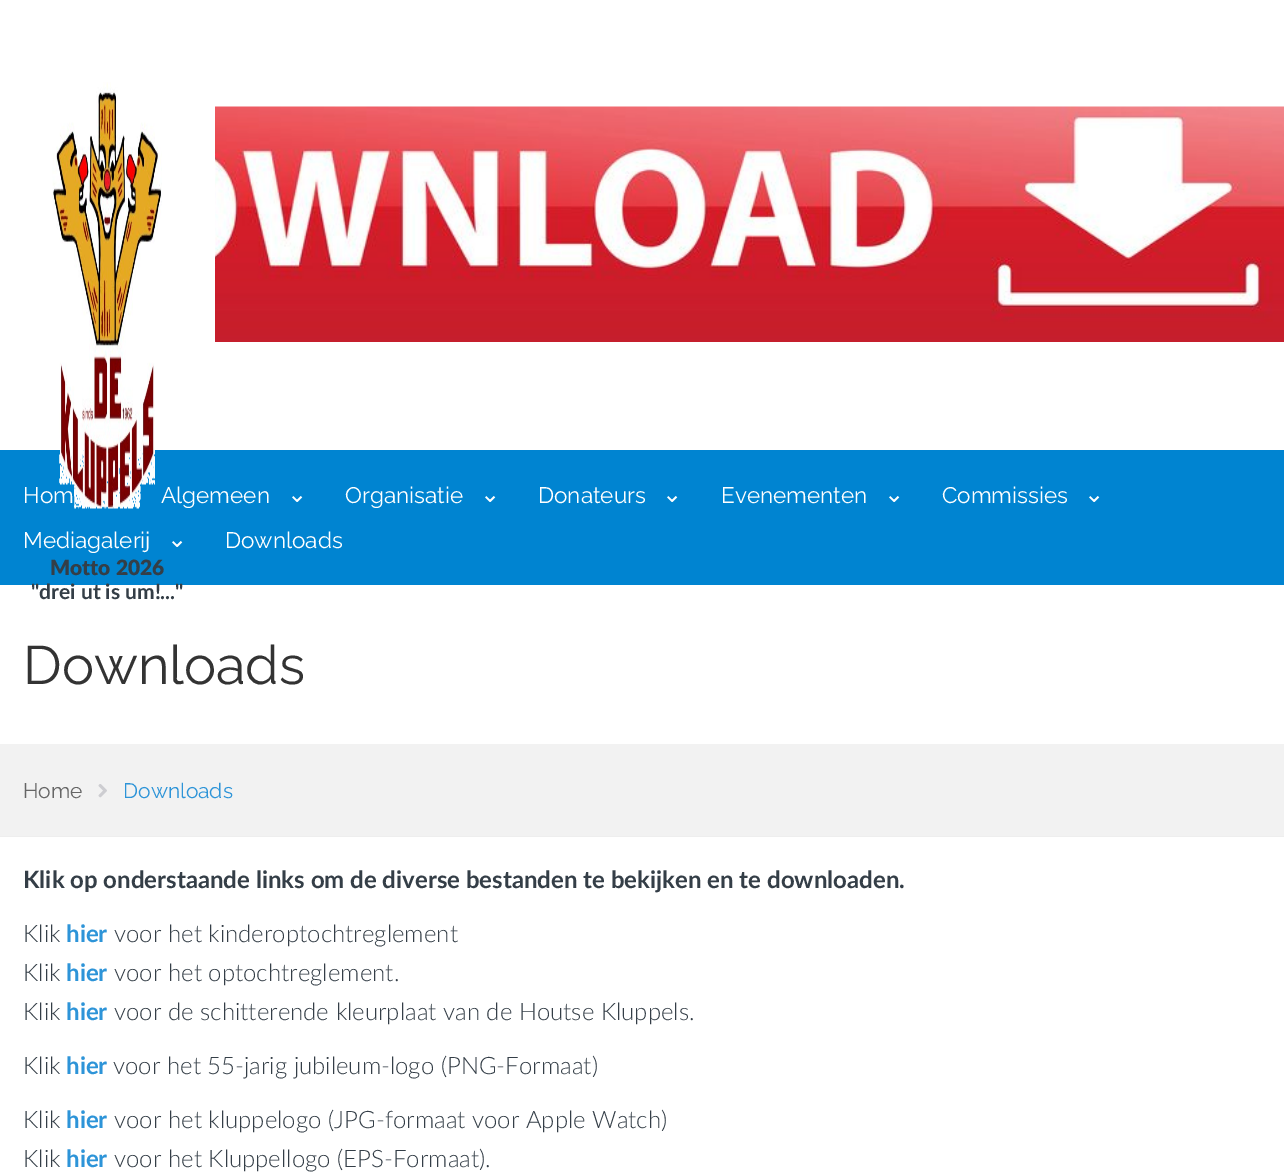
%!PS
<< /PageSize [1284 1176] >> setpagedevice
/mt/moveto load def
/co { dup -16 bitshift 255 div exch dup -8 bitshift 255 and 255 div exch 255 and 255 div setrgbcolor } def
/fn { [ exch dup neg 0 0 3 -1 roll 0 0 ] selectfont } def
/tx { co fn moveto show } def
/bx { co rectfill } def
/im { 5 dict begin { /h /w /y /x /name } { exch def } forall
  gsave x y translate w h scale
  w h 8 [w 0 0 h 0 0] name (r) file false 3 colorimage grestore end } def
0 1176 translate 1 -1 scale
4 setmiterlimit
0 0 1284 1176 16#FFFFFF bx
0 450 1284 135 16#0084D1 bx
(media/1.raw) 215 106 1069 236 im
(media/2.raw) 52 82 110 427 im
0 744 1284 92 16#F2F2F2 bx
0 836 1284 1 16#EEEEEE bx
(media/3.raw) 98 784 9 14 im
(Hom) 23 503 /Raleway-Regular 22.5 16#FFFFFF tx
(Algemeen) 161 503 /Raleway-Regular 22.5 16#FFFFFF tx
/DejaVuSans-Regular 24 fn
287 502 mt 5 0 (⌄) ashow
(Organisatie) 345 503 /Raleway-Regular 22.5 16#FFFFFF tx
/DejaVuSans-Regular 24 fn
480 502 mt 5 0 (⌄) ashow
(Donateurs) 538 503 /Raleway-Regular 22.5 16#FFFFFF tx
/DejaVuSans-Regular 24 fn
662 502 mt 5 0 (⌄) ashow
(Evenementen) 721 503 /Raleway-Regular 22.5 16#FFFFFF tx
/DejaVuSans-Regular 24 fn
884 502 mt 5 0 (⌄) ashow
(Commissies) 942 503 /Raleway-Regular 22.5 16#FFFFFF tx
/DejaVuSans-Regular 24 fn
1084 502 mt 5 0 (⌄) ashow
(Mediagalerij) 23 548 /Raleway-Regular 22.5 16#FFFFFF tx
/DejaVuSans-Regular 24 fn
167 547 mt 5 0 (⌄) ashow
(Downloads) 225 548 /Raleway-Regular 22.5 16#FFFFFF tx
(Motto 2026) 50 575 /Lato-ExtraBold 21 16#343E47 tx
("drei ut is um!...") 31 599 /Lato-Bold 21 16#343E47 tx
(Downloads) 23 684 /Raleway-Regular 54 16#333333 tx
(Home) 23 798 /Raleway-Regular 21 16#666666 tx
(Downloads) 123 798 /Raleway-Regular 21 16#2D94D8 tx
(Klik op onderstaande links om de diverse bestanden te bekijken en te downloaden.) 23 888 /Lato-Bold 24 16#343E47 tx
(Klik) 23 942 /Lato-Light 24 16#343E47 tx
(hier) 66 942 /Lato-Bold 24 16#2D94D8 tx
(voor het kinderoptochtreglement) 114 942 /Lato-Light 24 16#343E47 tx
(Klik) 23 981 /Lato-Light 24 16#343E47 tx
(hier) 66 981 /Lato-Bold 24 16#2D94D8 tx
(voor het optochtreglement.) 114 981 /Lato-Light 24 16#343E47 tx
(Klik) 23 1020 /Lato-Light 24 16#343E47 tx
(hier) 66 1020 /Lato-Bold 24 16#2D94D8 tx
(voor de schitterende kleurplaat van de Houtse Kluppels.) 114 1020 /Lato-Light 24 16#343E47 tx
(Klik) 23 1074 /Lato-Light 24 16#343E47 tx
(hier) 66 1074 /Lato-Bold 24 16#2D94D8 tx
(voor het 55-jarig jubileum-logo \(PNG-Formaat\)) 113 1074 /Lato-Light 24 16#343E47 tx
(Klik) 23 1128 /Lato-Light 24 16#343E47 tx
(hier) 66 1128 /Lato-Bold 24 16#2D94D8 tx
(voor het kluppelogo \(JPG-formaat voor Apple Watch\)) 114 1128 /Lato-Light 24 16#343E47 tx
(Klik) 23 1167 /Lato-Light 24 16#343E47 tx
(hier) 66 1167 /Lato-Bold 24 16#2D94D8 tx
(voor het Kluppellogo \(EPS-Formaat\).) 114 1167 /Lato-Light 24 16#343E47 tx
showpage
